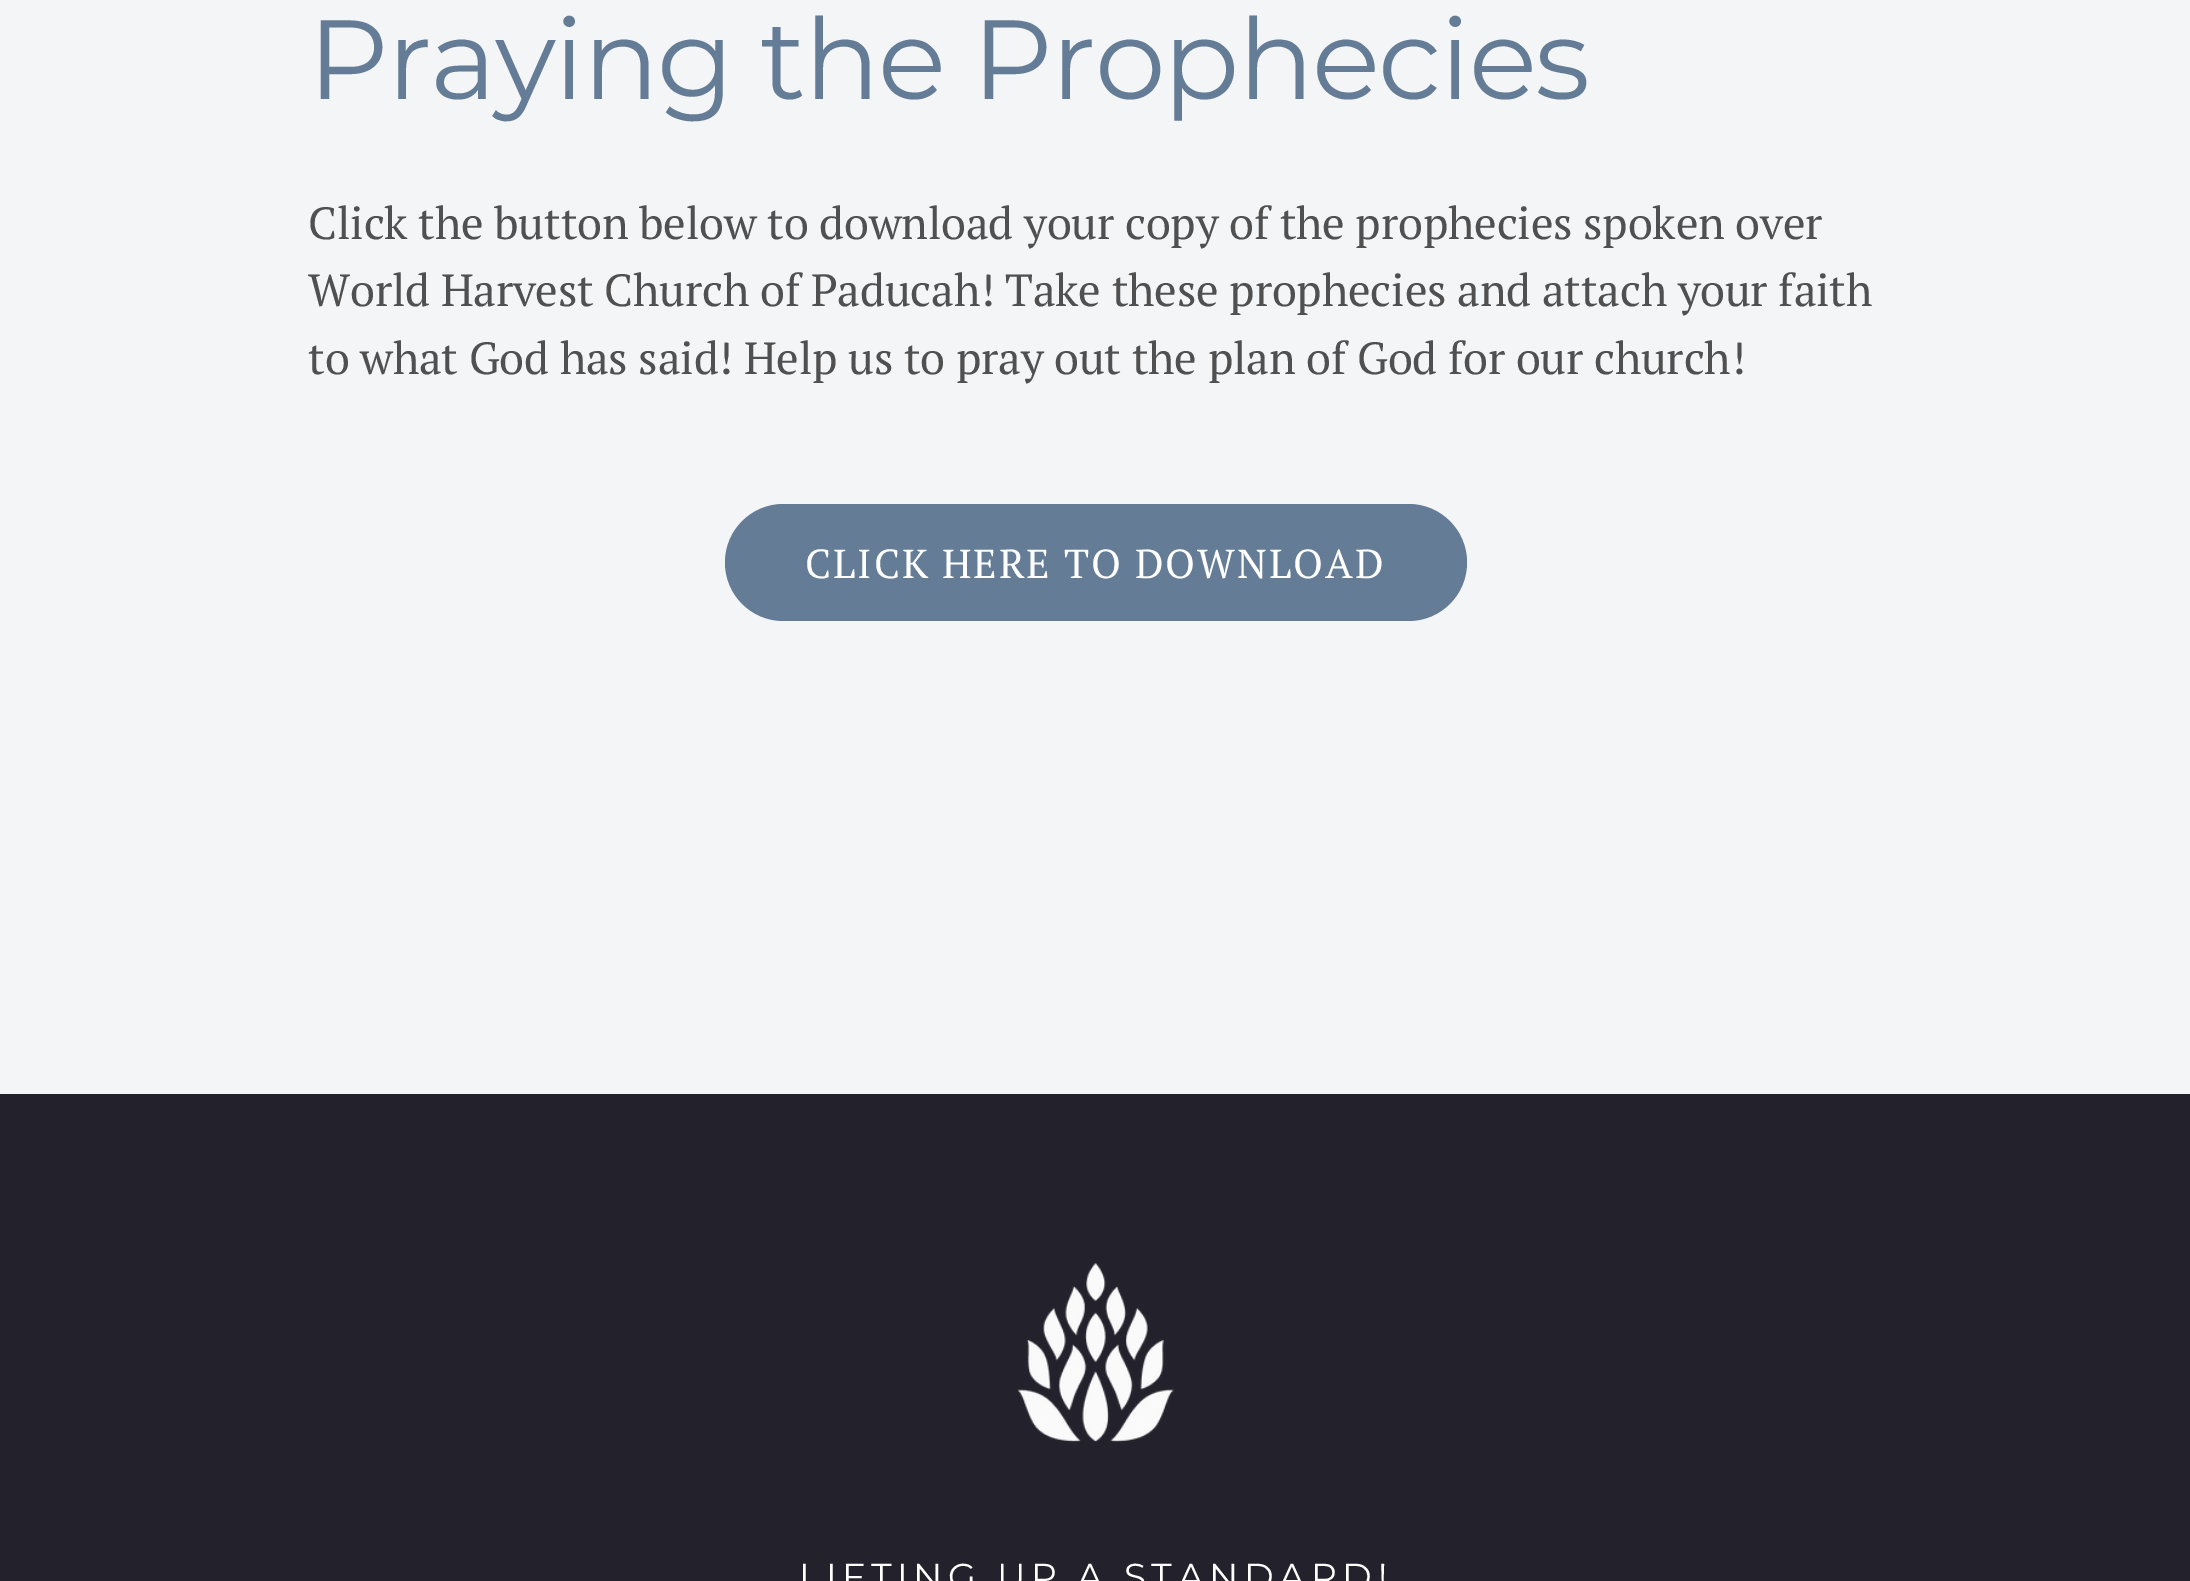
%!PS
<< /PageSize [2190 1581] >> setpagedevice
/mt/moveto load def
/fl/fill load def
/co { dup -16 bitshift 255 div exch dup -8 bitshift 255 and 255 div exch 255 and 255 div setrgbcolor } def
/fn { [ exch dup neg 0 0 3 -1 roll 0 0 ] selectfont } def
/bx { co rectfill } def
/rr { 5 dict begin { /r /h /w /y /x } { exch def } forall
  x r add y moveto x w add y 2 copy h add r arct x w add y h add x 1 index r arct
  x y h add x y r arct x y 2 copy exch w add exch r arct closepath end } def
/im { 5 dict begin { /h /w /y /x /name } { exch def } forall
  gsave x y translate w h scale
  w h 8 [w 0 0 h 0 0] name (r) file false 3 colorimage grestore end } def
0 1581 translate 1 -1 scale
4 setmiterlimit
0 0 2190 1581 16#F3F5F7 bx
16#647C96 co
725 504 742 117 58.5 rr fl
0 1094 2190 487 16#23222C bx
(media/1.raw) 1017 1263 157 179 im
/Montserrat-Regular 112.5 fn
16#647C96 co
308 99 mt -1.75 0 (Praying the Prophecies) ashow
/PTSerif-Regular 45 fn
16#505050 co
308 239 mt -.18 0 (Click the button below to download your copy of the prophecies spoken over) ashow
308 306 mt -.18 0 (World Harvest Church of Paducah! Take these prophecies and attach your faith) ashow
308 374 mt -.18 0 (to what God has said! Help us to pray out the plan of God for our church!) ashow
/PTSerif-Regular 40.5 fn
16#FFFFFF co
805 578 mt 2 0 (CLICK HERE TO DOWNLOAD) ashow
/Montserrat-Regular 36 fn
799 1589 mt 5.6 0 (LIFTING UP A STANDARD!) ashow
showpage
